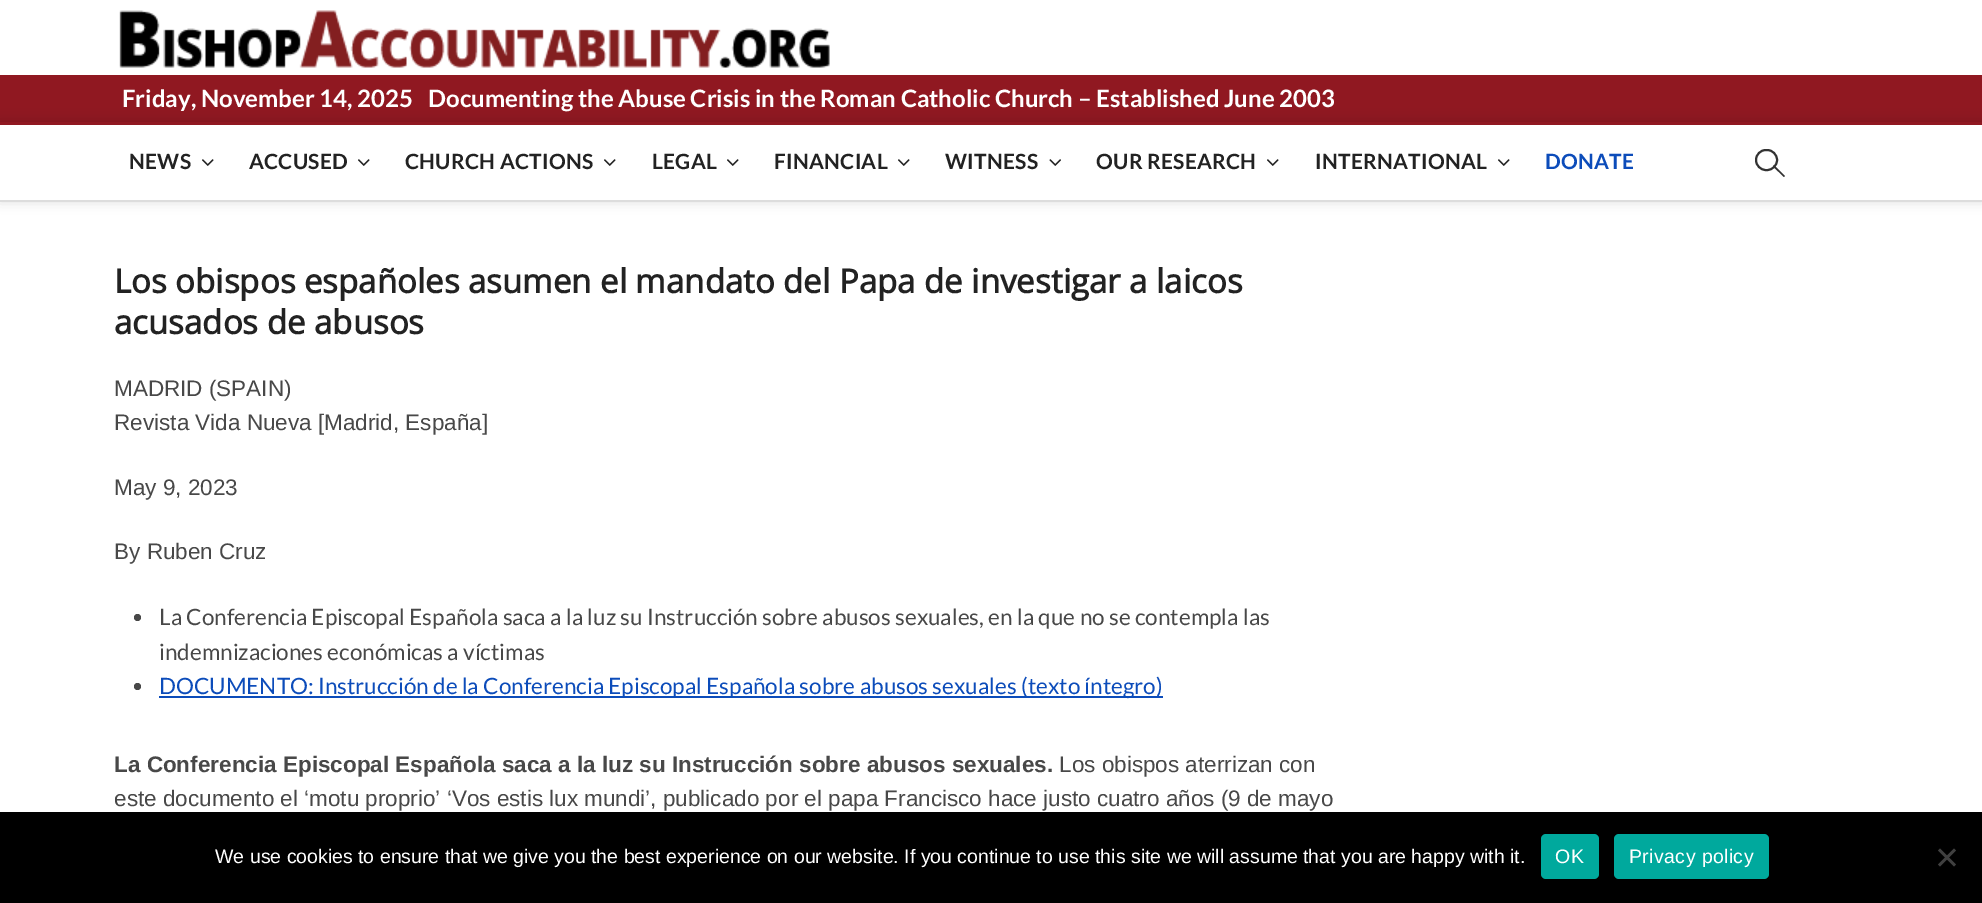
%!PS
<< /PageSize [1982 903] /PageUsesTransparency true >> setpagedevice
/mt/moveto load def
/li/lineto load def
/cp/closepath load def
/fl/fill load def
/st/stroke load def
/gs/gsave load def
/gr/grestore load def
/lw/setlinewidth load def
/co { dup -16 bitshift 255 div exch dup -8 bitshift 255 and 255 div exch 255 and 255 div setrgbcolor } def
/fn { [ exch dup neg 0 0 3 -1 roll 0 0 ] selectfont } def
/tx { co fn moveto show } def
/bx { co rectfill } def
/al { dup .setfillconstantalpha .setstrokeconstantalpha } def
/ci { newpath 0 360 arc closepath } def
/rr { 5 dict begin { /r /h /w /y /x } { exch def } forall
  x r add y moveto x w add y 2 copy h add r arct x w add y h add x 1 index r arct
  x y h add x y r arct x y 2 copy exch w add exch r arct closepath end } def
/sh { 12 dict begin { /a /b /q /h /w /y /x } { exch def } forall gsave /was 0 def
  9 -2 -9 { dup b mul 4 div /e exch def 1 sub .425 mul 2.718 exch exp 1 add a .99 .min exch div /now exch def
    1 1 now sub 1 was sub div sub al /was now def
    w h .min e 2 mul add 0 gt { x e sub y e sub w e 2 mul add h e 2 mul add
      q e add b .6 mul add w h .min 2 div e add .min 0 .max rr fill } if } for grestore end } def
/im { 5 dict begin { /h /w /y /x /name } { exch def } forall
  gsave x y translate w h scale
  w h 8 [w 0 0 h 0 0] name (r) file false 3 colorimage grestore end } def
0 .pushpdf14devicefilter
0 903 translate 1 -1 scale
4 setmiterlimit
0 0 1982 903 16#FFFFFF bx
(media/1.raw) 119 10 711 58 im
0 75 1982 47 16#901821 bx
gs
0 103 mt 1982 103 li 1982 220 li 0 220 li cp 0 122 mt 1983 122 li 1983 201 li 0 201 li cp eoclip newpath
16#000000 co
0 122 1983 79 0 6 .15 sh
gr
0 122 1982 3 16#901821 bx
0 200 1982 2 16#DDDDDD bx
(media/2.raw) 202 159 12 7 im
(media/2.raw) 358 159 12 7 im
(media/2.raw) 604 159 12 7 im
(media/2.raw) 727 159 12 7 im
(media/2.raw) 898 159 12 7 im
(media/3.raw) 1049 159 12 7 im
(media/2.raw) 1267 159 12 7 im
(media/2.raw) 1498 159 12 7 im
16#333333 co
2 lw
1756 150 21 20 10 rr st
1773 166.5 mt 1774 165 li 1785 176 li 1784 177 li cp fl
16#484848 co
137.5 617.5 3.5 ci fl
137.5 686.5 3.5 ci fl
159 696 1004 2 16#0C4CBA bx
0 812 1982 91 16#000000 bx
16#00A99D co
1541 834 58 45 5 rr fl
1614 834 155 45 5 rr fl
16#404040 co
1954 848.5 mt 1956 850.5 li 1940 866.5 li 1938 864.5 li cp fl
1938 850.5 mt 1940 848.5 li 1956 864.5 li 1954 866.5 li cp fl
(Friday, November 14, 2025) 122 107 /Lato-Bold 24 16#FFFFFF tx
(Documenting the Abuse Crisis in the Roman Catholic Church – Established June 2003) 428 107 /Lato-Bold 24 16#FFFFFF tx
/Lato-Bold 21 fn
16#222222 co
129 169 mt .25 0 (NEWS) ashow
249 169 mt .25 0 (ACCUSED) ashow
405 169 mt .25 0 (CHURCH ACTIONS) ashow
652 169 mt .25 0 (LEGAL) ashow
774 169 mt .25 0 (FINANCIAL) ashow
945 169 mt .25 0 (WITNESS) ashow
1096 169 mt .25 0 (OUR RESEARCH) ashow
1315 169 mt .25 0 (INTERNATIONAL) ashow
16#0C4CBA co
1545 169 mt .25 0 (DONATE) ashow
(Los obispos españoles asumen el mandato del Papa de investigar a laicos) 114 293 /OpenSans-Bold 33 16#222222 tx
(acusados de abusos) 114 334 /OpenSans-Bold 33 16#222222 tx
(MADRID \(SPAIN\)) 114 396 /LiberationSans-Regular 22.5 16#484848 tx
(Revista Vida Nueva [Madrid, España]) 114 430 /LiberationSans-Regular 22.5 16#484848 tx
(May 9, 2023) 114 495 /LiberationSans-Regular 22.5 16#484848 tx
(By Ruben Cruz) 114 559 /LiberationSans-Regular 22.5 16#484848 tx
(La Conferencia Episcopal Española saca a la luz su Instrucción sobre abusos sexuales, en la que no se contempla las) 159 625 /Lato-Regular 22.5 16#484848 tx
(indemnizaciones económicas a víctimas) 159 660 /Lato-Regular 22.5 16#484848 tx
(DOCUMENTO: Instrucción de la Conferencia Episcopal Española sobre abusos sexuales \(texto íntegro\)) 159 694 /Lato-Regular 22.5 16#0C4CBA tx
(La Conferencia Episcopal Española saca a la luz su Instrucción sobre abusos sexuales.) 114 772 /LiberationSans-Bold 22.5 16#484848 tx
(Los obispos aterrizan con) 1059 772 /LiberationSans-Regular 22.5 16#484848 tx
(este documento el ‘motu proprio’ ‘Vos estis lux mundi’, publicado por el papa Francisco hace justo cuatro años \(9 de mayo) 114 806 /LiberationSans-Regular 22.5 16#484848 tx
(We use cookies to ensure that we give you the best experience on our website. If you continue to use this site we will assume that you are happy with it.) 215 863 /LiberationSans-Regular 19.5 16#FFFFFF tx
1555 863 mt .4 0 (OK) ashow
1629 863 mt .4 0 (Privacy policy) ashow
.poppdf14devicefilter showpage
